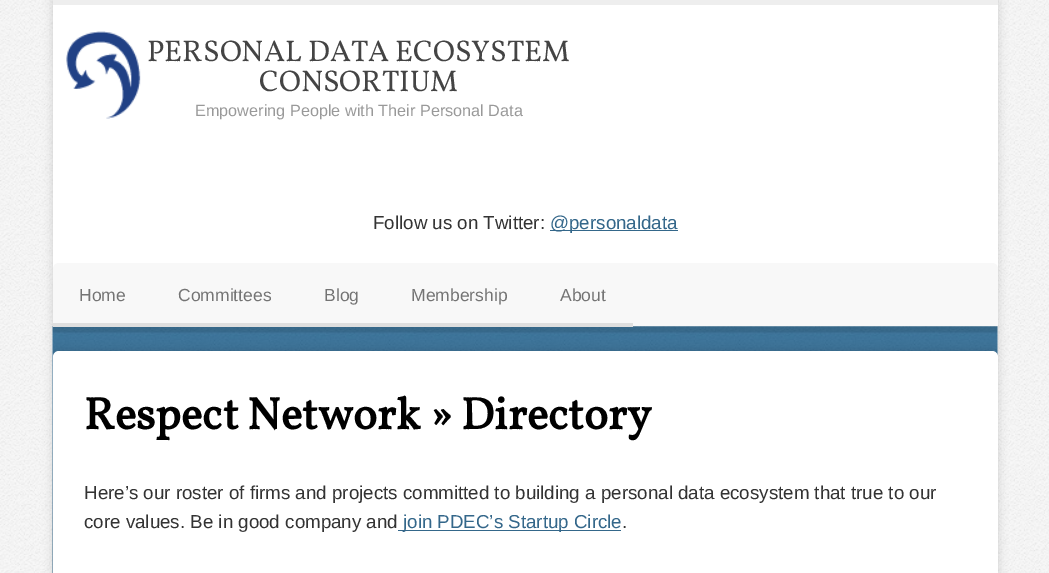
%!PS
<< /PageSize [1049 573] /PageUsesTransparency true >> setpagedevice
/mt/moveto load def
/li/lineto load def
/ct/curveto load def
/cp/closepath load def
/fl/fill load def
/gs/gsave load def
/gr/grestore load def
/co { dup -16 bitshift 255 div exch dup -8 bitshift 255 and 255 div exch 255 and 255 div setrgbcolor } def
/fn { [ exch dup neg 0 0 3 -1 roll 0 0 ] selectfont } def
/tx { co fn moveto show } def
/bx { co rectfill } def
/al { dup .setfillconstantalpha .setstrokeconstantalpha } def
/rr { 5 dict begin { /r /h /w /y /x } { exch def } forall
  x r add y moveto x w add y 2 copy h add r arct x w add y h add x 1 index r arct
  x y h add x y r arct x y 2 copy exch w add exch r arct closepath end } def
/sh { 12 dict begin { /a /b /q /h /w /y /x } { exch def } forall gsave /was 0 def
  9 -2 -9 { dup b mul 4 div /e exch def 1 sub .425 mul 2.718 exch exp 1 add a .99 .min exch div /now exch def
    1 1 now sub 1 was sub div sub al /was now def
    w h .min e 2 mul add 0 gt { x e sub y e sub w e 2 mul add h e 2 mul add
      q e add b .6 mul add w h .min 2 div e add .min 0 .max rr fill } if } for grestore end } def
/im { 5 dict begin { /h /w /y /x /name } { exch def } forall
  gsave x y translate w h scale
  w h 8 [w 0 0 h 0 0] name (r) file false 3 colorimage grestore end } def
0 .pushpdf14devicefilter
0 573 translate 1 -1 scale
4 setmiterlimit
0 0 1049 573 16#FFFFFF bx
(media/1.raw) 0 0 1049 573 im
16#000000 co
53 0 945 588 0 5 .15 sh
53 5 945 264 16#FFFFFF bx
53 0 945 5 16#EEEEEE bx
(media/2.raw) 66 31 75 88 im
550 230 128 1 16#34678A bx
16#F8F8F8 co
59 263 mt 992 263 li 995.5 263 998 265.5 998 269 ct 998 326 li 53 326 li 53 269 li 53 265.5 55.5 263 59 263 ct cp fl
(media/3.raw) 52 326 946 247 im
53 323 580 4 16#DFDFDF bx
gs
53 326 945 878 rectclip
16#000000 co
53 351 945 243 6 5 .15 sh
gr
16#FFFFFF co
53 351 945 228 6 rr fl
398 530 223 1 16#34678A bx
(PERSONAL DATA ECOSYSTEM) 147 61 /Vollkorn-Regular 30 16#444444 tx
(CONSORTIUM) 259 91 /Vollkorn-Regular 30 16#444444 tx
(Empowering People with Their Personal Data) 195 116 /LiberationSans-Regular 16.25 16#999999 tx
(Follow us on Twitter:) 373 229 /LiberationSans-Regular 18.75 16#333333 tx
(@personaldata) 550 229 /LiberationSans-Regular 18.75 16#34678A tx
(Home) 79 301 /LiberationSans-Regular 17.5 16#747474 tx
(Committees) 178 301 /LiberationSans-Regular 17.5 16#747474 tx
(Blog) 324 301 /LiberationSans-Regular 17.5 16#747474 tx
(Membership) 411 301 /LiberationSans-Regular 17.5 16#747474 tx
(About) 560 301 /LiberationSans-Regular 17.5 16#747474 tx
(Respect Network » Directory) 84 429 /Vollkorn-Bold 45 16#000000 tx
(Here’s our roster of firms and projects committed to building a personal data ecosystem that true to our) 84 499 /LiberationSans-Regular 18.75 16#333333 tx
(core values. Be in good company and) 84 528 /LiberationSans-Regular 18.75 16#333333 tx
(join PDEC’s Startup Circle) 403 528 /LiberationSans-Regular 18.75 16#34678A tx
(.) 622 528 /LiberationSans-Regular 18.75 16#333333 tx
.poppdf14devicefilter showpage
